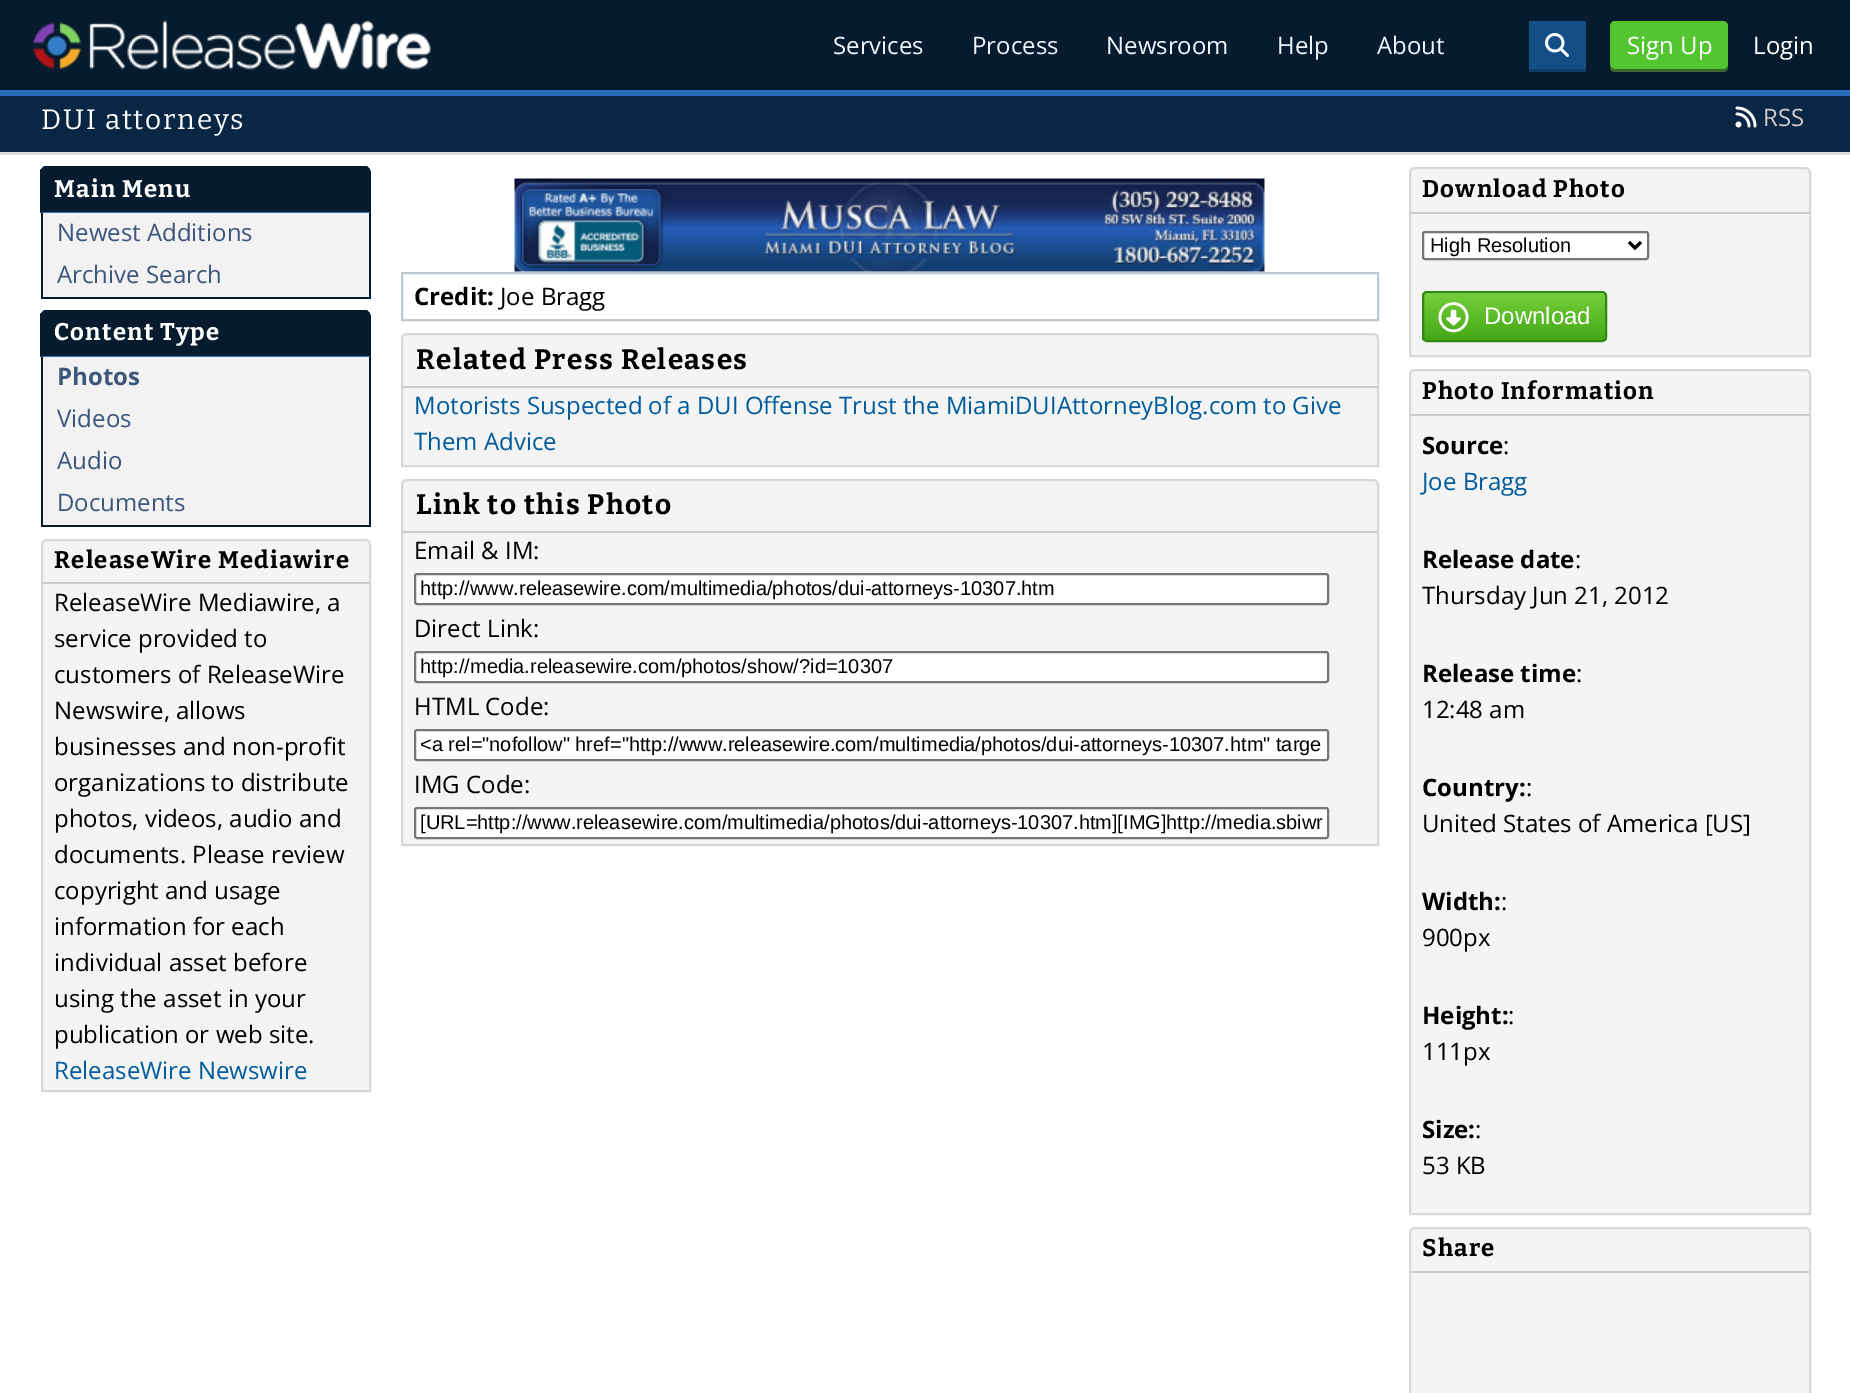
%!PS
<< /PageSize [1850 1393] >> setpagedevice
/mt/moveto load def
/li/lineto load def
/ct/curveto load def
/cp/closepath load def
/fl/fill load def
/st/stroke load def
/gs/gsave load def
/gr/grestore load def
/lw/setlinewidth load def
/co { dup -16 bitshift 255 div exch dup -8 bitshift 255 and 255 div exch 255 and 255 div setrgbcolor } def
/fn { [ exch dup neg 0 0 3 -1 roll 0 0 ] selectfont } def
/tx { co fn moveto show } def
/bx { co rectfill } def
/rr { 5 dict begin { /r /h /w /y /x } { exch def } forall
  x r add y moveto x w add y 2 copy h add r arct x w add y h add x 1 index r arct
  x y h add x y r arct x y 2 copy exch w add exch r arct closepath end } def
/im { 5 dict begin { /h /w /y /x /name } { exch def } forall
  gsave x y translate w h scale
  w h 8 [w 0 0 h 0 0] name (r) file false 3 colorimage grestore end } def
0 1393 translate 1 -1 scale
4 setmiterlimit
0 0 1850 1393 16#FFFFFF bx
0 0 1850 90 16#061B2D bx
0 90 1850 6 16#266FBC bx
(media/1.raw) 32 20 399 50 im
16#103E6A co
1529 69 mt 1529 72 li 1586 72 li 1586 24 li 1586 69 li cp fl
1529 21 57 48 16#134E87 bx
(media/2.raw) 1545 33 24 24 im
16#3B6A2E co
1610 67 mt 1610 70 1612 72 1615 72 ct 1723 72 li 1726 72 1728 70 1728 67 ct 1728 64 li 1728 67 1726 69 1724 69 ct 1614 69 li 1612 69 1611 68 1610 67 ct cp fl
16#53C530 co
1610 21 118 48 5 rr fl
0 96 1850 56 16#092744 bx
0 152 1850 3 16#DADDE0 bx
(media/3.raw) 1735 106 22 22 im
16#061B2D co
47 167 mt 365 167 li 368.5 167 371 169.5 371 173 ct 371 213 li 41 213 li 41 173 li 41 169.5 43.5 167 47 167 ct cp fl
46 168 mt 43 169 li 42 168 li 44 166 li 367 166 li 369 168 li 368 169 li 367 169 366 168 364 168 ct cp fl
369 168 mt 370 169 370 171 370 172 ct 370 212 li 369 212 li 369 172 li 369 171 369 170 368 169 ct cp fl
16#266FBC co
40 213 mt 370 213 li 370 212 li 369 212 li 42 212 li cp fl
16#061B2D co
40 213 mt 40 170 li 42 168 li 43 169 li 42 170 42 171 42 172 ct 42 212 li cp fl
43 213 326 84 16#F2F2F2 bx
369 213 2 86 16#061B2D bx
41 297 330 2 16#061B2D bx
41 213 2 86 16#061B2D bx
47 311 mt 365 311 li 368.5 311 371 313.5 371 317 ct 371 357 li 41 357 li 41 317 li 41 313.5 43.5 311 47 311 ct cp fl
46 312 mt 43 313 li 42 312 li 44 310 li 367 310 li 369 312 li 368 313 li 367 313 366 312 364 312 ct cp fl
369 312 mt 370 313 370 315 370 316 ct 370 356 li 369 356 li 369 316 li 369 315 369 314 368 313 ct cp fl
16#266FBC co
40 357 mt 370 357 li 370 356 li 369 356 li 42 356 li cp fl
16#061B2D co
40 357 mt 40 314 li 42 312 li 43 313 li 42 314 42 315 42 316 ct 42 356 li cp fl
43 357 326 168 16#F2F2F2 bx
369 357 2 170 16#061B2D bx
41 525 330 2 16#061B2D bx
41 357 2 170 16#061B2D bx
16#F4F4F4 co
47 540 mt 365 540 li 368 540 370 542 370 545 ct 370 1091 li 42 1091 li 42 545 li 42 542 44 540 47 540 ct cp gs fl gr
16#D6D8DA co
2 lw
st
42 582 327 2 16#CCCCCC bx
(media/4.raw) 514 178 751 94 im
16#BDC8D1 co
402 273 976 47 rectstroke
16#F4F4F4 co
407 334 mt 1373 334 li 1376 334 1378 336 1378 339 ct 1378 466 li 402 466 li 402 339 li 402 336 404 334 407 334 ct cp gs fl gr
16#D6D8DA co
st
402 386 975 2 16#CCCCCC bx
16#F4F4F4 co
407 480 mt 1373 480 li 1376 480 1378 482 1378 485 ct 1378 845 li 402 845 li 402 485 li 402 482 404 480 407 480 ct cp gs fl gr
16#D6D8DA co
st
402 531 975 2 16#CCCCCC bx
16#FFFFFF co
415 574 913 30 2 rr gs fl gr
16#767676 co
st
16#FFFFFF co
415 652 913 30 2 rr gs fl gr
16#767676 co
st
16#FFFFFF co
415 730 913 30 2 rr gs fl gr
16#767676 co
st
16#FFFFFF co
415 808 913 30 2 rr gs fl gr
16#767676 co
st
16#F4F4F4 co
1415 168 mt 1805 168 li 1808 168 1810 170 1810 173 ct 1810 356 li 1410 356 li 1410 173 li 1410 170 1412 168 1415 168 ct cp gs fl gr
16#D6D8DA co
st
1410 212 399 2 16#CCCCCC bx
16#FFFFFF co
1423 232 225 27 2 rr gs fl gr
16#767676 co
st
16#000000 co
3 lw
1629 242 mt 1635 248 li 1641 242 li st
gs
1422 291 185 51 5 rr clip newpath
gs 1422 293 mt 1607 293 li 1607 341 li 1422 341 li cp clip newpath
<< /ShadingType 2 /ColorSpace /DeviceRGB /Coords [1514 293 1514 341] /Extend [true true] /Function << /FunctionType 3 /Domain [0 1] /Functions [<< /FunctionType 2 /Domain [0 1] /C0 [.553 .898 .475] /C1 [.455 .808 .224] /N 1 >> << /FunctionType 2 /Domain [0 1] /C0 [.455 .808 .224] /C1 [.259 .655 .082] /N 1 >>] /Bounds [.03] /Encode [0 1 0 1] >> >> shfill gr
gr
16#2F8B13 co
2 lw
1423 292 183 49 4 rr st
(media/5.raw) 1438 302 31 31 im
16#F4F4F4 co
1415 370 mt 1805 370 li 1808 370 1810 372 1810 375 ct 1810 1214 li 1410 1214 li 1410 375 li 1410 372 1412 370 1415 370 ct cp gs fl gr
16#D6D8DA co
st
1410 414 399 2 16#CCCCCC bx
16#F4F4F4 co
1415 1228 mt 1805 1228 li 1808 1228 1810 1230 1810 1233 ct 1810 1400 li 1410 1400 li 1410 1233 li 1410 1230 1412 1228 1415 1228 ct cp gs fl gr
16#D6D8DA co
st
1410 1271 399 2 16#CCCCCC bx
(Services) 833 54 /OpenSans-Regular 24 16#EFF5FB tx
(Process) 972 54 /OpenSans-Regular 24 16#EFF5FB tx
(Newsroom) 1106 54 /OpenSans-Regular 24 16#EFF5FB tx
(Help) 1277 54 /OpenSans-Regular 24 16#EFF5FB tx
(About) 1377 54 /OpenSans-Regular 24 16#EFF5FB tx
(Sign Up) 1627 54 /OpenSans-Regular 24 16#FFFFFF tx
(Login) 1753 54 /OpenSans-Regular 24 16#FFFFFF tx
/Bitter-Regular 28 fn
41 129 mt 1.75 0 (DUI attorneys) ashow
(RSS) 1763 126 /OpenSans-Regular 24 16#CCCCCC tx
/Bitter-Bold 24 fn
16#FFFFFF co
54 197 mt 1.2 0 (Main Menu) ashow
(Newest Additions) 57 241 /OpenSans-Regular 24 16#3D567B tx
(Archive Search) 57 283 /OpenSans-Regular 24 16#3D567B tx
/Bitter-Bold 24 fn
16#FFFFFF co
54 340 mt 1.2 0 (Content Type) ashow
(Photos) 57 385 /OpenSans-Bold 24 16#3D567B tx
(Videos) 57 427 /OpenSans-Regular 24 16#3D567B tx
(Audio) 57 469 /OpenSans-Regular 24 16#3D567B tx
(Documents) 57 511 /OpenSans-Regular 24 16#3D567B tx
/Bitter-Bold 24 fn
16#000000 co
54 568 mt 1.2 0 (ReleaseWire Mediawire) ashow
(ReleaseWire Mediawire, a) 54 611 /OpenSans-Regular 24 16#000000 tx
(service provided to) 54 647 /OpenSans-Regular 24 16#000000 tx
(customers of ReleaseWire) 54 683 /OpenSans-Regular 24 16#000000 tx
(Newswire, allows) 54 719 /OpenSans-Regular 24 16#000000 tx
(businesses and non-profit) 54 755 /OpenSans-Regular 24 16#000000 tx
(organizations to distribute) 54 791 /OpenSans-Regular 24 16#000000 tx
(photos, videos, audio and) 54 827 /OpenSans-Regular 24 16#000000 tx
(documents. Please review) 54 863 /OpenSans-Regular 24 16#000000 tx
(copyright and usage) 54 899 /OpenSans-Regular 24 16#000000 tx
(information for each) 54 935 /OpenSans-Regular 24 16#000000 tx
(individual asset before) 54 971 /OpenSans-Regular 24 16#000000 tx
(using the asset in your) 54 1007 /OpenSans-Regular 24 16#000000 tx
(publication or web site.) 54 1043 /OpenSans-Regular 24 16#000000 tx
(ReleaseWire Newswire) 54 1079 /OpenSans-Regular 24 16#005C9C tx
(Credit:) 414 305 /OpenSans-Bold 24 16#000000 tx
(Joe Bragg) 500 305 /OpenSans-Regular 24 16#000000 tx
/Bitter-Bold 28 fn
416 369 mt 1.4 0 (Related Press Releases) ashow
(Motorists Suspected of a DUI Offense Trust the MiamiDUIAttorneyBlog.com to Give) 414 414 /OpenSans-Regular 24 16#005C9C tx
(Them Advice) 414 450 /OpenSans-Regular 24 16#005C9C tx
/Bitter-Bold 28 fn
16#000000 co
416 514 mt 1.4 0 (Link to this Photo) ashow
(Email & IM:) 414 559 /OpenSans-Regular 24 16#000000 tx
(http://www.releasewire.com/multimedia/photos/dui-attorneys-10307.htm) 420 595 /LiberationSans-Regular 20 16#000000 tx
(Direct Link:) 414 637 /OpenSans-Regular 24 16#000000 tx
(http://media.releasewire.com/photos/show/?id=10307) 420 673 /LiberationSans-Regular 20 16#000000 tx
(HTML Code:) 414 715 /OpenSans-Regular 24 16#000000 tx
(<a rel="nofollow" href="http://www.releasewire.com/multimedia/photos/dui-attorneys-10307.htm" targe) 420 751 /LiberationSans-Regular 20 16#000000 tx
(IMG Code:) 414 793 /OpenSans-Regular 24 16#000000 tx
([URL=http://www.releasewire.com/multimedia/photos/dui-attorneys-10307.htm][IMG]http://media.sbiwr) 420 829 /LiberationSans-Regular 20 16#000000 tx
/Bitter-Bold 24 fn
1422 197 mt 1.2 0 (Download Photo) ashow
(High Resolution) 1430 252 /LiberationSans-Regular 20 16#000000 tx
(Download) 1484 324 /LiberationSans-Regular 24 16#FFFFFF tx
/Bitter-Bold 24 fn
16#000000 co
1422 399 mt 1.2 0 (Photo Information) ashow
(Source) 1422 454 /OpenSans-Bold 24 16#000000 tx
(:) 1503 454 /OpenSans-Regular 24 16#000000 tx
(Joe Bragg) 1422 490 /OpenSans-Regular 24 16#005C9C tx
(Release date) 1422 568 /OpenSans-Bold 24 16#000000 tx
(:) 1575 568 /OpenSans-Regular 24 16#000000 tx
(Thursday Jun 21, 2012) 1422 604 /OpenSans-Regular 24 16#000000 tx
(Release time) 1422 682 /OpenSans-Bold 24 16#000000 tx
(:) 1576 682 /OpenSans-Regular 24 16#000000 tx
(12:48 am) 1422 718 /OpenSans-Regular 24 16#000000 tx
(Country:) 1422 796 /OpenSans-Bold 24 16#000000 tx
(:) 1526 796 /OpenSans-Regular 24 16#000000 tx
(United States of America [US]) 1422 832 /OpenSans-Regular 24 16#000000 tx
(Width:) 1422 910 /OpenSans-Bold 24 16#000000 tx
(:) 1501 910 /OpenSans-Regular 24 16#000000 tx
(900px) 1422 946 /OpenSans-Regular 24 16#000000 tx
(Height:) 1422 1024 /OpenSans-Bold 24 16#000000 tx
(:) 1508 1024 /OpenSans-Regular 24 16#000000 tx
(111px) 1422 1060 /OpenSans-Regular 24 16#000000 tx
(Size:) 1422 1138 /OpenSans-Bold 24 16#000000 tx
(:) 1475 1138 /OpenSans-Regular 24 16#000000 tx
(53 KB) 1422 1174 /OpenSans-Regular 24 16#000000 tx
/Bitter-Bold 24 fn
1422 1256 mt 1.2 0 (Share) ashow
showpage
